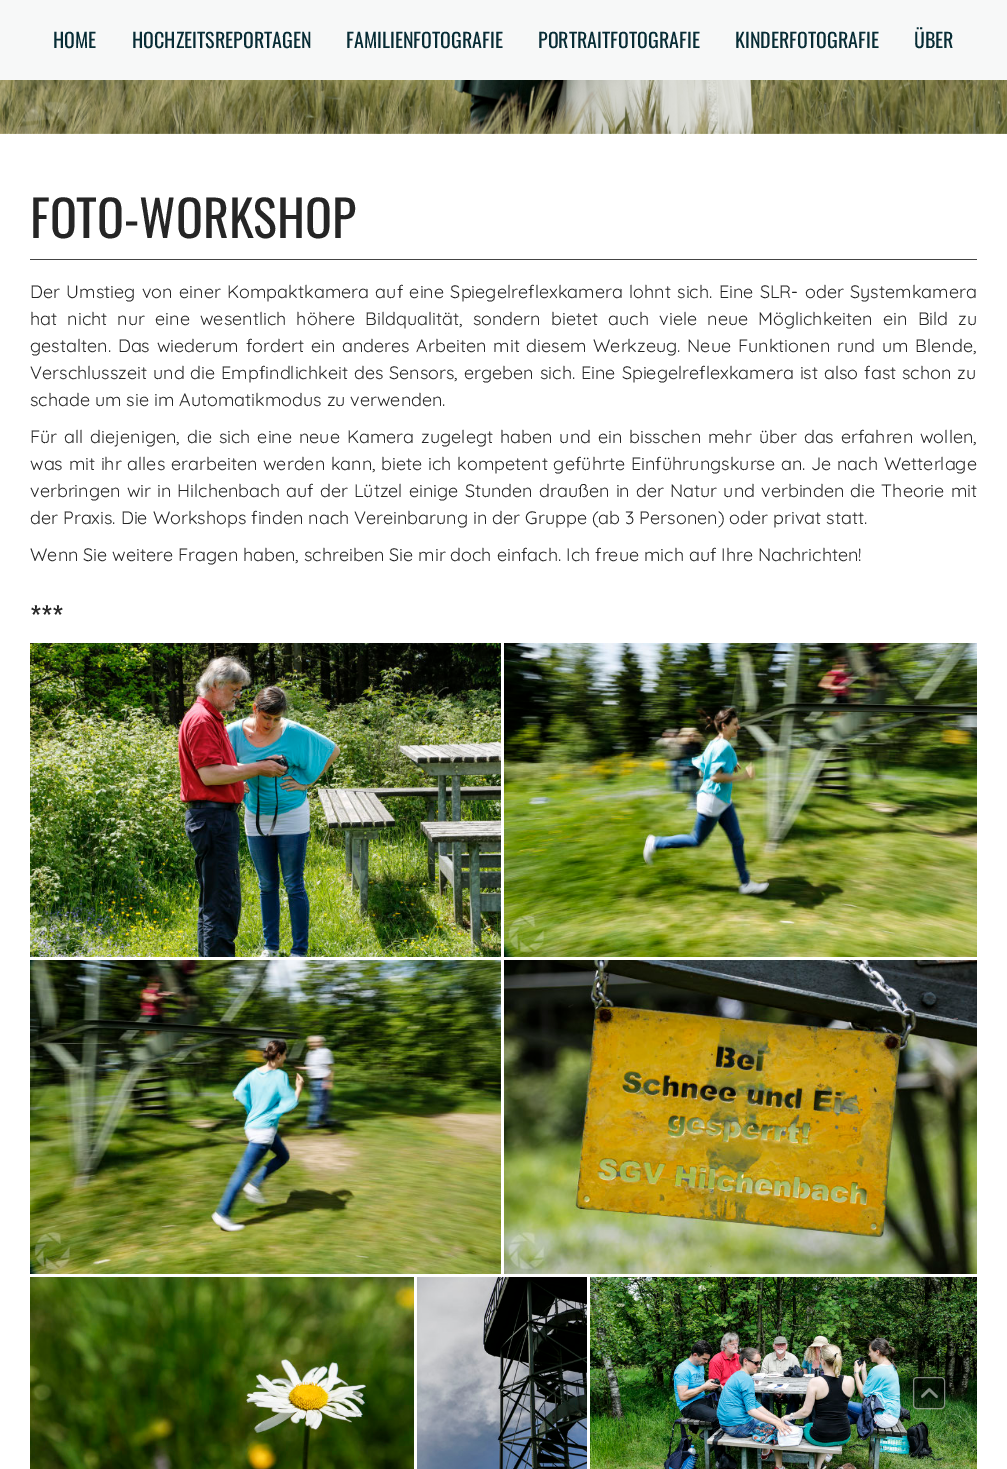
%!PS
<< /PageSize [1007 1469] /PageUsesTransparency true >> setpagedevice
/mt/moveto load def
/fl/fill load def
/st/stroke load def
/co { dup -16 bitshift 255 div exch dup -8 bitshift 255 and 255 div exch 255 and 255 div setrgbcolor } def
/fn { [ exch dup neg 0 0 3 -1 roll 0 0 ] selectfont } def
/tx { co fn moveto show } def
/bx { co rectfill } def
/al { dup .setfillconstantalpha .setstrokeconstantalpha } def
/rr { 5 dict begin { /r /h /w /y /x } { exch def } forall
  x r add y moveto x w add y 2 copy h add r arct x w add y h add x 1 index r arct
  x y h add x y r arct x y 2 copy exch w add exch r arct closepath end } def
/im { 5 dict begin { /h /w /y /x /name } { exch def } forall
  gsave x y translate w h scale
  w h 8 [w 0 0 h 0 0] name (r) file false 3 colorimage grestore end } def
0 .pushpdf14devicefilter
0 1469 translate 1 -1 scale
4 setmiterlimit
0 0 1007 1469 16#FFFFFF bx
0 0 1007 80 16#F7F8F8 bx
(media/1.raw) 0 80 1007 54 im
30 259 947 1 16#444444 bx
(media/2.raw) 30 643 471 314 im
(media/3.raw) 504 643 473 314 im
(media/4.raw) 30 960 471 314 im
(media/5.raw) 504 960 473 314 im
(media/6.raw) 30 1277 384 192 im
(media/7.raw) 417 1277 170 192 im
(media/8.raw) 590 1277 387 192 im
0.5 al
16#000000 co
913 1377 32 32 4 rr fl
16#FFFFFF co
913.5 1377.5 31 31 3.5 rr st
1 al
(media/9.raw) 921 1388 17 10 im
(HOME) 53 48 /Oswald-Regular 20 16#072C35 tx
(HOCHZEITSREPORTAGEN) 132 48 /Oswald-Regular 20 16#072C35 tx
(FAMILIENFOTOGRAFIE) 346 48 /Oswald-Regular 20 16#072C35 tx
(PORTRAITFOTOGRAFIE) 538 48 /Oswald-Regular 20 16#072C35 tx
(KINDERFOTOGRAFIE) 735 48 /Oswald-Regular 20 16#072C35 tx
(ÜBER) 914 48 /Oswald-Regular 20 16#072C35 tx
(FOTO-WORKSHOP) 30 238 /Oswald-Regular 50 16#252525 tx
/Quicksand-Light 18 fn
30 298 mt 1.5 0 32 (Der Umstieg von einer Kompaktkamera auf eine Spiegelreflexkamera lohnt sich. Eine SLR- oder Systemkamera) widthshow
30 325 mt 5.25 0 32 (hat nicht nur eine wesentlich höhere Bildqualität, sondern bietet auch viele neue) widthshow
758 325 mt 5.25 0 32 (Möglichkeiten ein Bild zu) widthshow
30 352 mt 1.8 0 32 (gestalten. Das wiederum fordert ein anderes Arbeiten mit diesem Werkzeug. Neue Funktionen rund um Blende,) widthshow
30 379 mt 1 0 32 (Verschlusszeit und die Empfindlichkeit des Sensors, ergeben) widthshow
540 379 mt 1 0 32 (sich. Eine Spiegelreflexkamera ist also fast schon zu) widthshow
(schade um sie im Automatikmodus zu verwenden.) 30 406 /Quicksand-Light 18 16#252525 tx
30 443 mt 2 0 32 (Für all diejenigen, die sich eine neue Kamera zugelegt haben und ein bisschen mehr über das erfahren wollen,) widthshow
30 470 mt .75 0 32 (was mit ihr alles erarbeiten werden kann, biete ich kompetent geführte) widthshow
631 470 mt .75 0 32 (Einführungskurse an. Je nach Wetterlage) widthshow
30 497 mt 1.2 0 32 (verbringen wir in Hilchenbach auf der Lützel einige Stunden draußen in der Natur und verbinden die Theorie mit) widthshow
(der Praxis. Die Workshops finden nach Vereinbarung in der Gruppe \(ab 3 Personen\) oder privat statt.) 30 524 /Quicksand-Light 18 16#252525 tx
(Wenn Sie weitere Fragen haben, schreiben Sie mir doch einfach. Ich freue mich auf Ihre Nachrichten!) 30 561 /Quicksand-Light 18 16#252525 tx
(***) 30 628 /Oswald-Regular 28 16#252525 tx
.poppdf14devicefilter showpage
